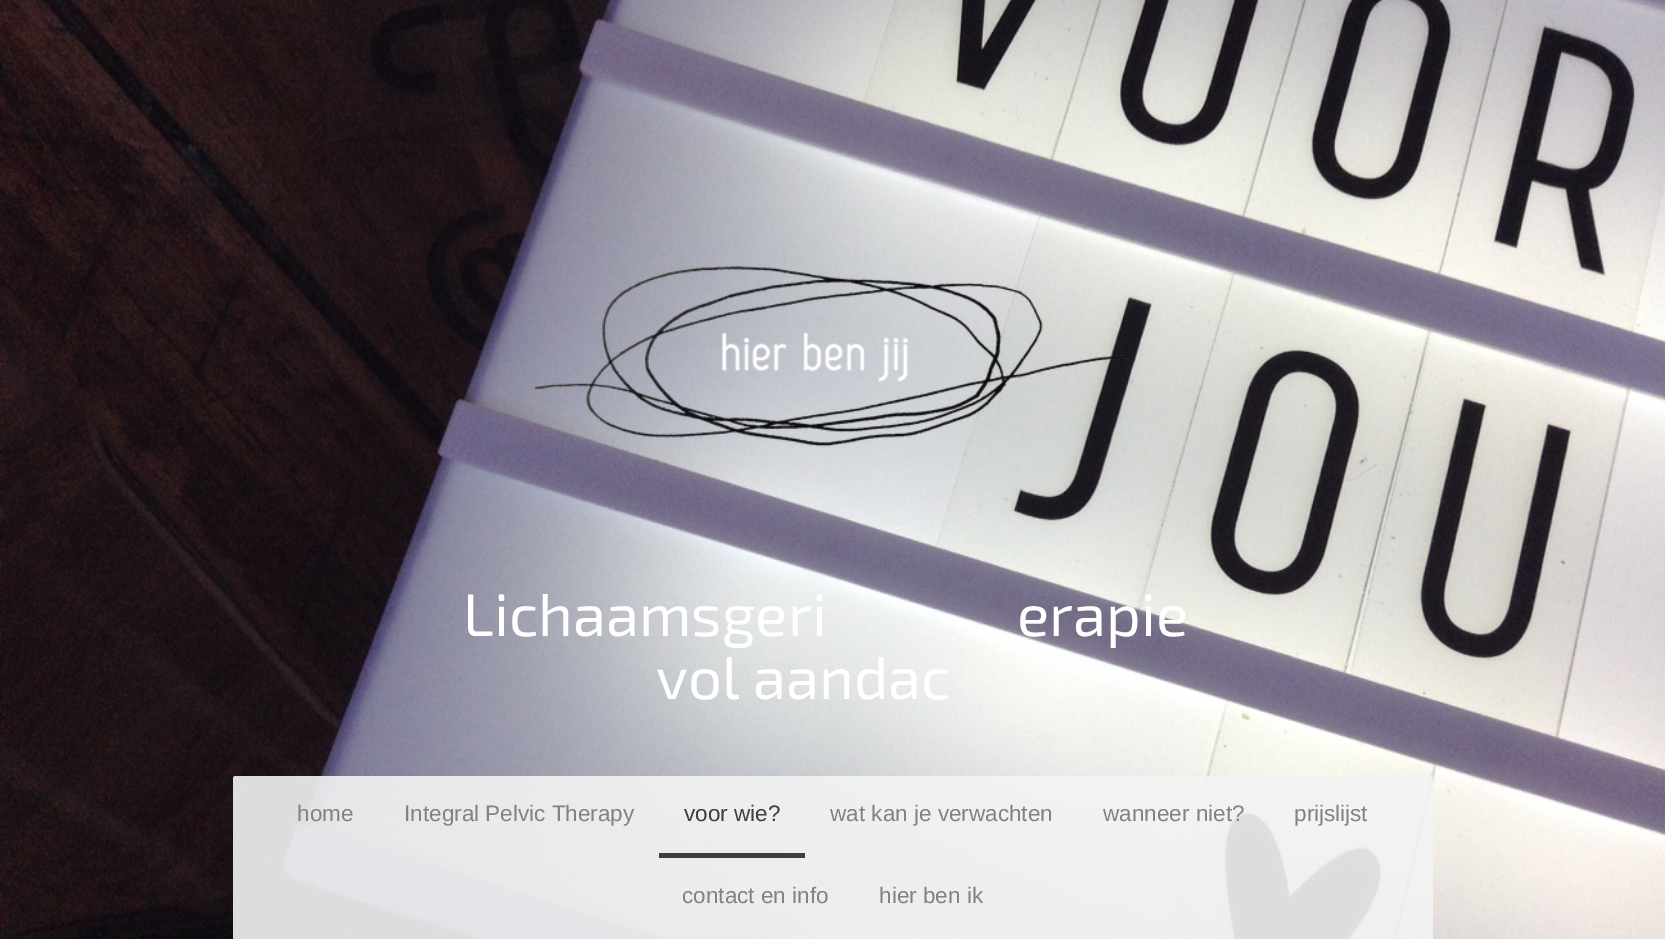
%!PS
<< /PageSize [1665 939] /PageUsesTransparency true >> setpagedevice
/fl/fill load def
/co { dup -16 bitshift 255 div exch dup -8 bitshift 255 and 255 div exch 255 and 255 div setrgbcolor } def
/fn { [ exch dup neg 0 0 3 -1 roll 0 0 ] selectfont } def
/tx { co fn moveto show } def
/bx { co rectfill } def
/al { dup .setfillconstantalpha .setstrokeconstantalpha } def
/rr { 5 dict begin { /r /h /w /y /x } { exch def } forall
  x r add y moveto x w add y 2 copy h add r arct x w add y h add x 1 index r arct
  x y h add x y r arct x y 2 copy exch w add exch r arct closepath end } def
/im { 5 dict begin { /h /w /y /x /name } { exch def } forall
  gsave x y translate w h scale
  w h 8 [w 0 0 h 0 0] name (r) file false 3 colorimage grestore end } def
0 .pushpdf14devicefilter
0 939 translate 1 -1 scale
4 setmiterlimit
0 0 1665 939 16#FFFFFF bx
(media/1.raw) 0 0 1665 939 im
(media/2.raw) 534 266 597 181 im
0.9 al
16#F3F3F3 co
233 776 1200 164 2.5 rr fl
1 al
659 853 146 5 16#3E3E3E bx
(Lichaamsgeri) 463 636 /Exo2-Regular 60 16#FFFFFF tx
(erapie) 1017 636 /Exo2-Regular 60 16#FFFFFF tx
(vol aandac) 656 699 /Exo2-Regular 60 16#FFFFFF tx
(home) 297 821 /LiberationSans-Regular 22.5 16#828282 tx
(Integral Pelvic Therapy) 404 821 /LiberationSans-Regular 22.5 16#828282 tx
(voor wie?) 684 821 /LiberationSans-Regular 22.5 16#3E3E3E tx
(wat kan je verwachten) 830 821 /LiberationSans-Regular 22.5 16#828282 tx
(wanneer niet?) 1103 821 /LiberationSans-Regular 22.5 16#828282 tx
(prijslijst) 1294 821 /LiberationSans-Regular 22.5 16#828282 tx
(contact en info) 682 903 /LiberationSans-Regular 22.5 16#828282 tx
(hier ben ik) 879 903 /LiberationSans-Regular 22.5 16#828282 tx
.poppdf14devicefilter showpage
